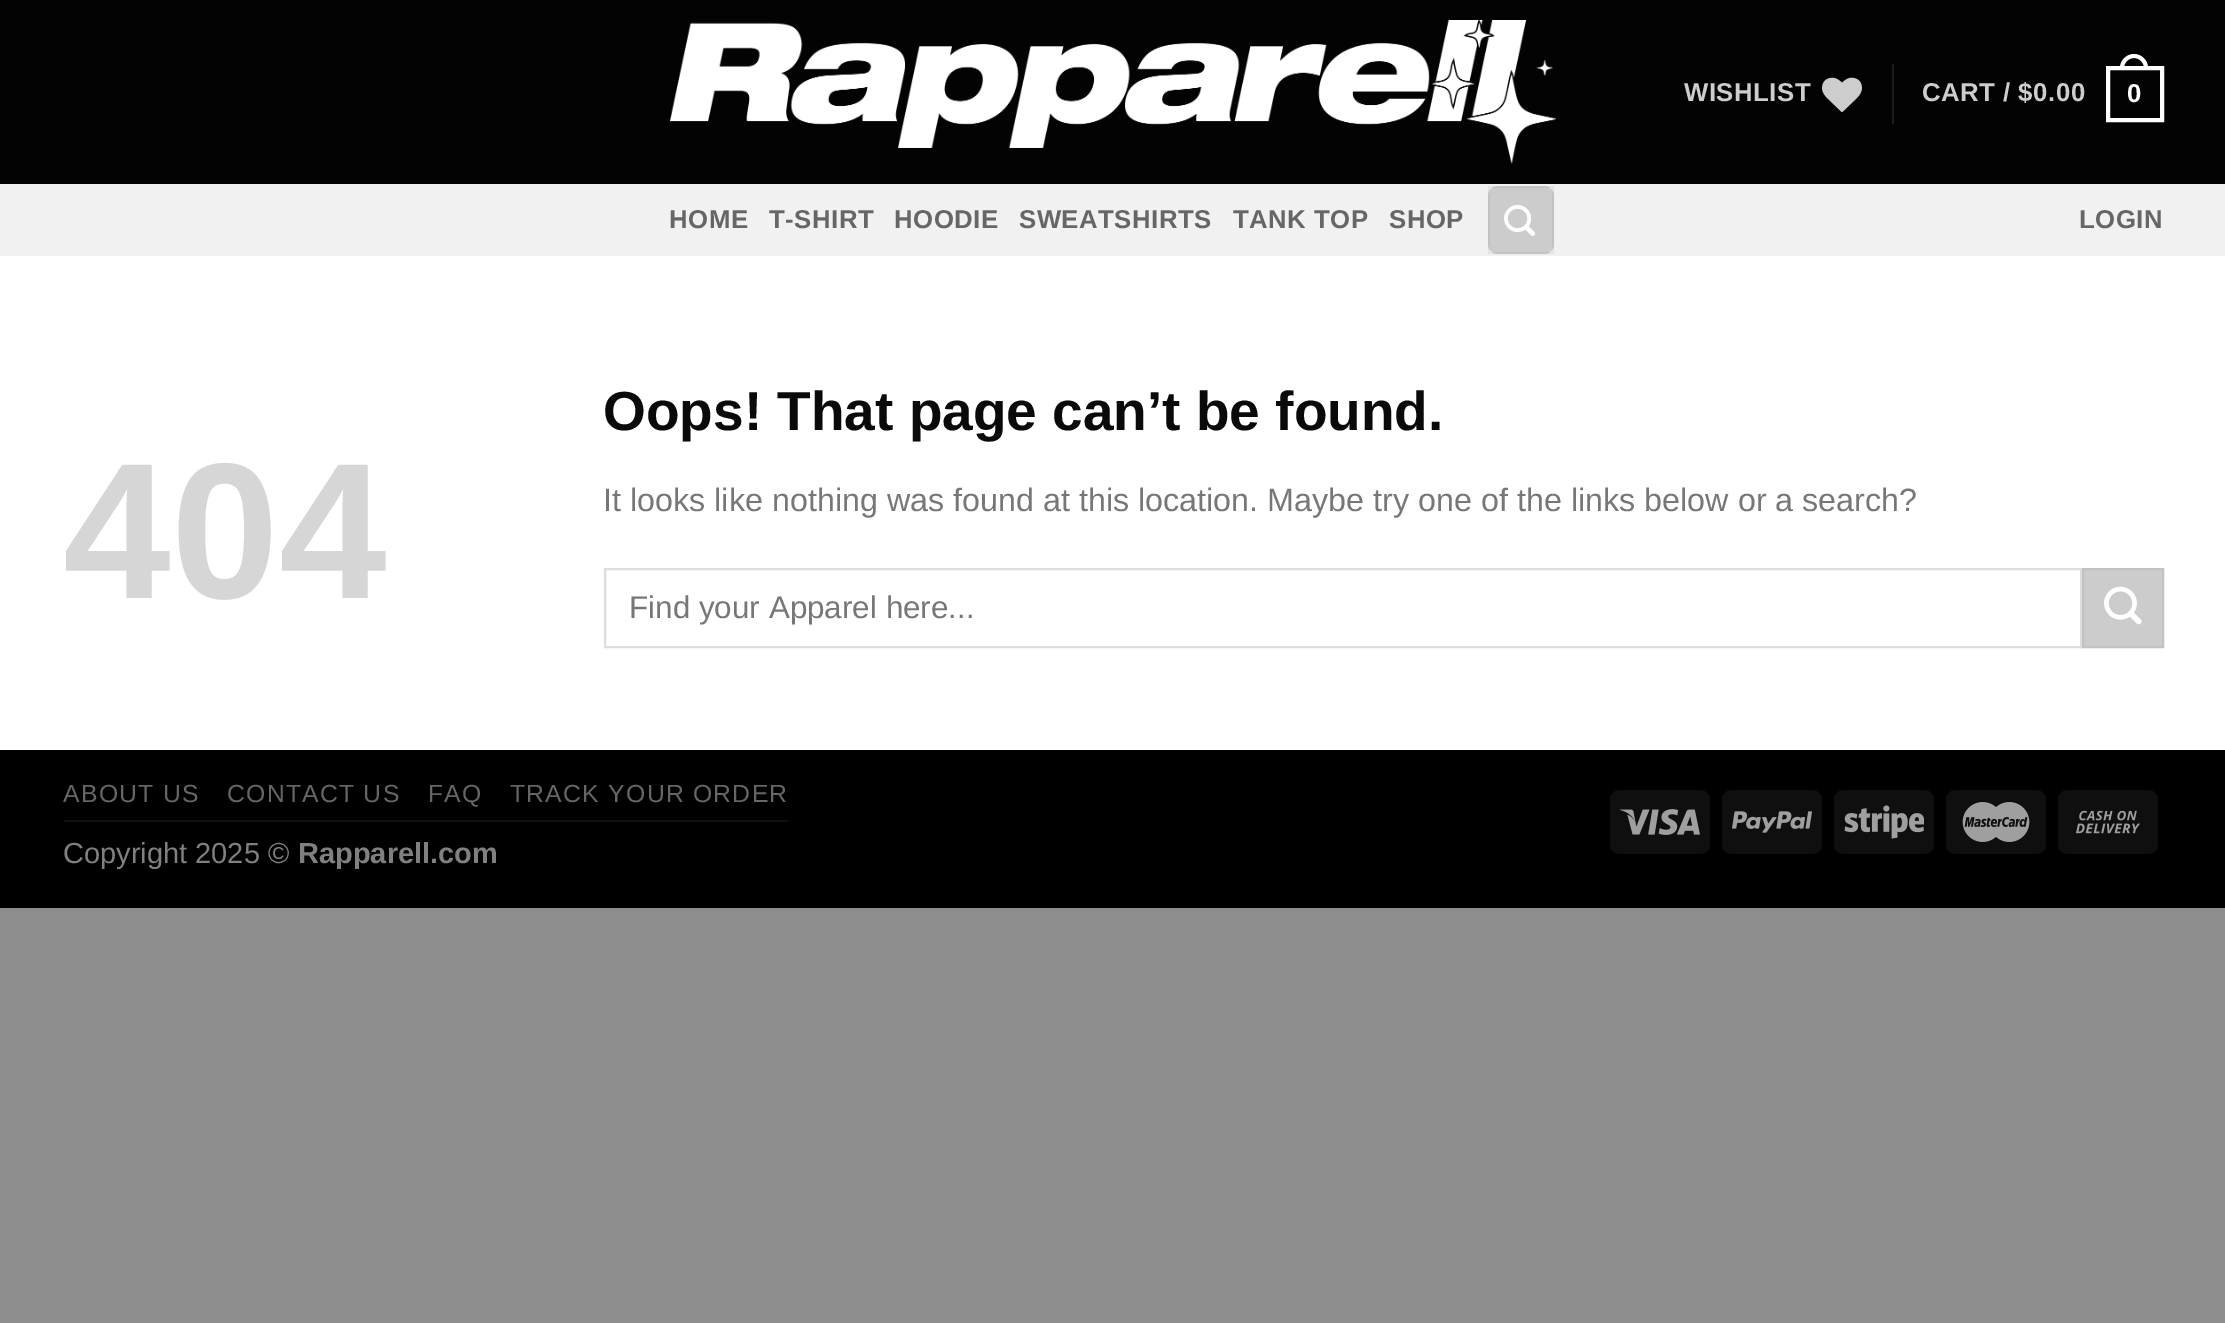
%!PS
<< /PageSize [2225 1323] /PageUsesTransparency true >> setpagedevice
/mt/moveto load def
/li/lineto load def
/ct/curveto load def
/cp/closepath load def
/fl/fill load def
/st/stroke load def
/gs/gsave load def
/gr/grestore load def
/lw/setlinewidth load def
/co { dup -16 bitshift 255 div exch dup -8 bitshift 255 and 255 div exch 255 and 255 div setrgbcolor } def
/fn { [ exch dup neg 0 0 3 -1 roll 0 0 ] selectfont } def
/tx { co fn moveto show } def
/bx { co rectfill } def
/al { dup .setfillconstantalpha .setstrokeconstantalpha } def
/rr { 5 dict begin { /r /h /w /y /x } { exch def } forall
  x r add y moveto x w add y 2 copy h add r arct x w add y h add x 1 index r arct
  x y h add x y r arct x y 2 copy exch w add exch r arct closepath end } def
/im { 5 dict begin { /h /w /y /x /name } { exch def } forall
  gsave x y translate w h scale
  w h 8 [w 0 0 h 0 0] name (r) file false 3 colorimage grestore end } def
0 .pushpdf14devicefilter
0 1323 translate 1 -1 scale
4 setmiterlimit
0 0 2225 1323 16#8E8E8E bx
0 256 2225 494 16#FFFFFF bx
0 0 2225 184 16#030303 bx
(media/1.raw) 670 20 886 144 im
(media/2.raw) 1822 77 40 35 im
1892 64 2 60 16#1C1C1C bx
16#FFFFFF co
4 lw
2108 68 54 52 rectstroke
2134 54 mt 2141.5 54 2148 60.5 2148 68 ct 2148 70 li 2120 70 li 2120 68 li 2120 60.5 2126.5 54 2134 54 ct cp 2134 58 mt 2139.5 58 2144 62.5 2144 68 ct 2144 70 li 2124 70 li 2124 68 li 2124 62.5 2128.5 58 2134 58 ct cp eofill
0 184 2225 72 16#F1F1F1 bx
16#CCCCCC co
1488 186 66 68 10 rr fl
0.05 al
16#000000 co
2 lw
1489 187 64 66 rectstroke
1 al
(media/3.raw) 1504 205 31 31 im
16#DDDDDD co
605 569 1476 78 rectstroke
16#CCCCCC co
2083 569 mt 2163 569 li 2163 647 li 2083 647 li cp gs fl gr
16#C2C2C2 co
st
(media/4.raw) 2104 586 38 39 im
0 750 2225 158 16#000000 bx
64 820 724 2 16#101010 bx
16#0F0F0F co
1610 790 100 64 10 rr fl
(media/5.raw) 1620 809 80 26 im
1722 790 100 64 10 rr fl
(media/6.raw) 1732 811 80 22 im
1834 790 100 64 10 rr fl
(media/7.raw) 1844 805 80 34 im
1946 790 100 64 10 rr fl
(media/8.raw) 1962 802 68 40 im
2058 790 100 64 10 rr fl
(media/9.raw) 2076 810 64 24 im
/LiberationSans-Bold 25.75 fn
16#CDCDCD co
1684 101 mt .5 0 (WISHLIST) ashow
1922 101 mt .5 0 (CART / $0.00) ashow
16#FFFFFF co
2127 102 mt .5 0 (0) ashow
16#666666 co
669 228 mt .5 0 (HOME) ashow
769 228 mt .5 0 (T-SHIRT) ashow
894 228 mt .5 0 (HOODIE) ashow
1019 228 mt .5 0 (SWEATSHIRTS) ashow
1233 228 mt .5 0 (TANK TOP) ashow
1389 228 mt .5 0 (SHOP) ashow
2079 228 mt .5 0 (LOGIN) ashow
(404) 63 598 /LiberationSans-Bold 194 16#D6D6D6 tx
(Oops! That page can’t be found.) 603 430 /LiberationSans-Bold 55 16#0A0A0A tx
(It looks like nothing was found at this location. Maybe try one of the links below or a search?) 603 511 /LiberationSans-Regular 32.3 16#777777 tx
(Find your Apparel here...) 629 618 /LiberationSans-Regular 31.4 16#777777 tx
/LiberationSans-Regular 24.75 fn
16#666666 co
63 802 mt 1.25 0 (ABOUT US) ashow
227 802 mt 1.25 0 (CONTACT US) ashow
428 802 mt 1.25 0 (FAQ) ashow
510 802 mt 1.25 0 (TRACK YOUR ORDER) ashow
(Copyright 2025 ©) 63 863 /LiberationSans-Regular 29 16#808080 tx
(Rapparell.com) 298 863 /LiberationSans-Bold 29 16#808080 tx
.poppdf14devicefilter showpage
